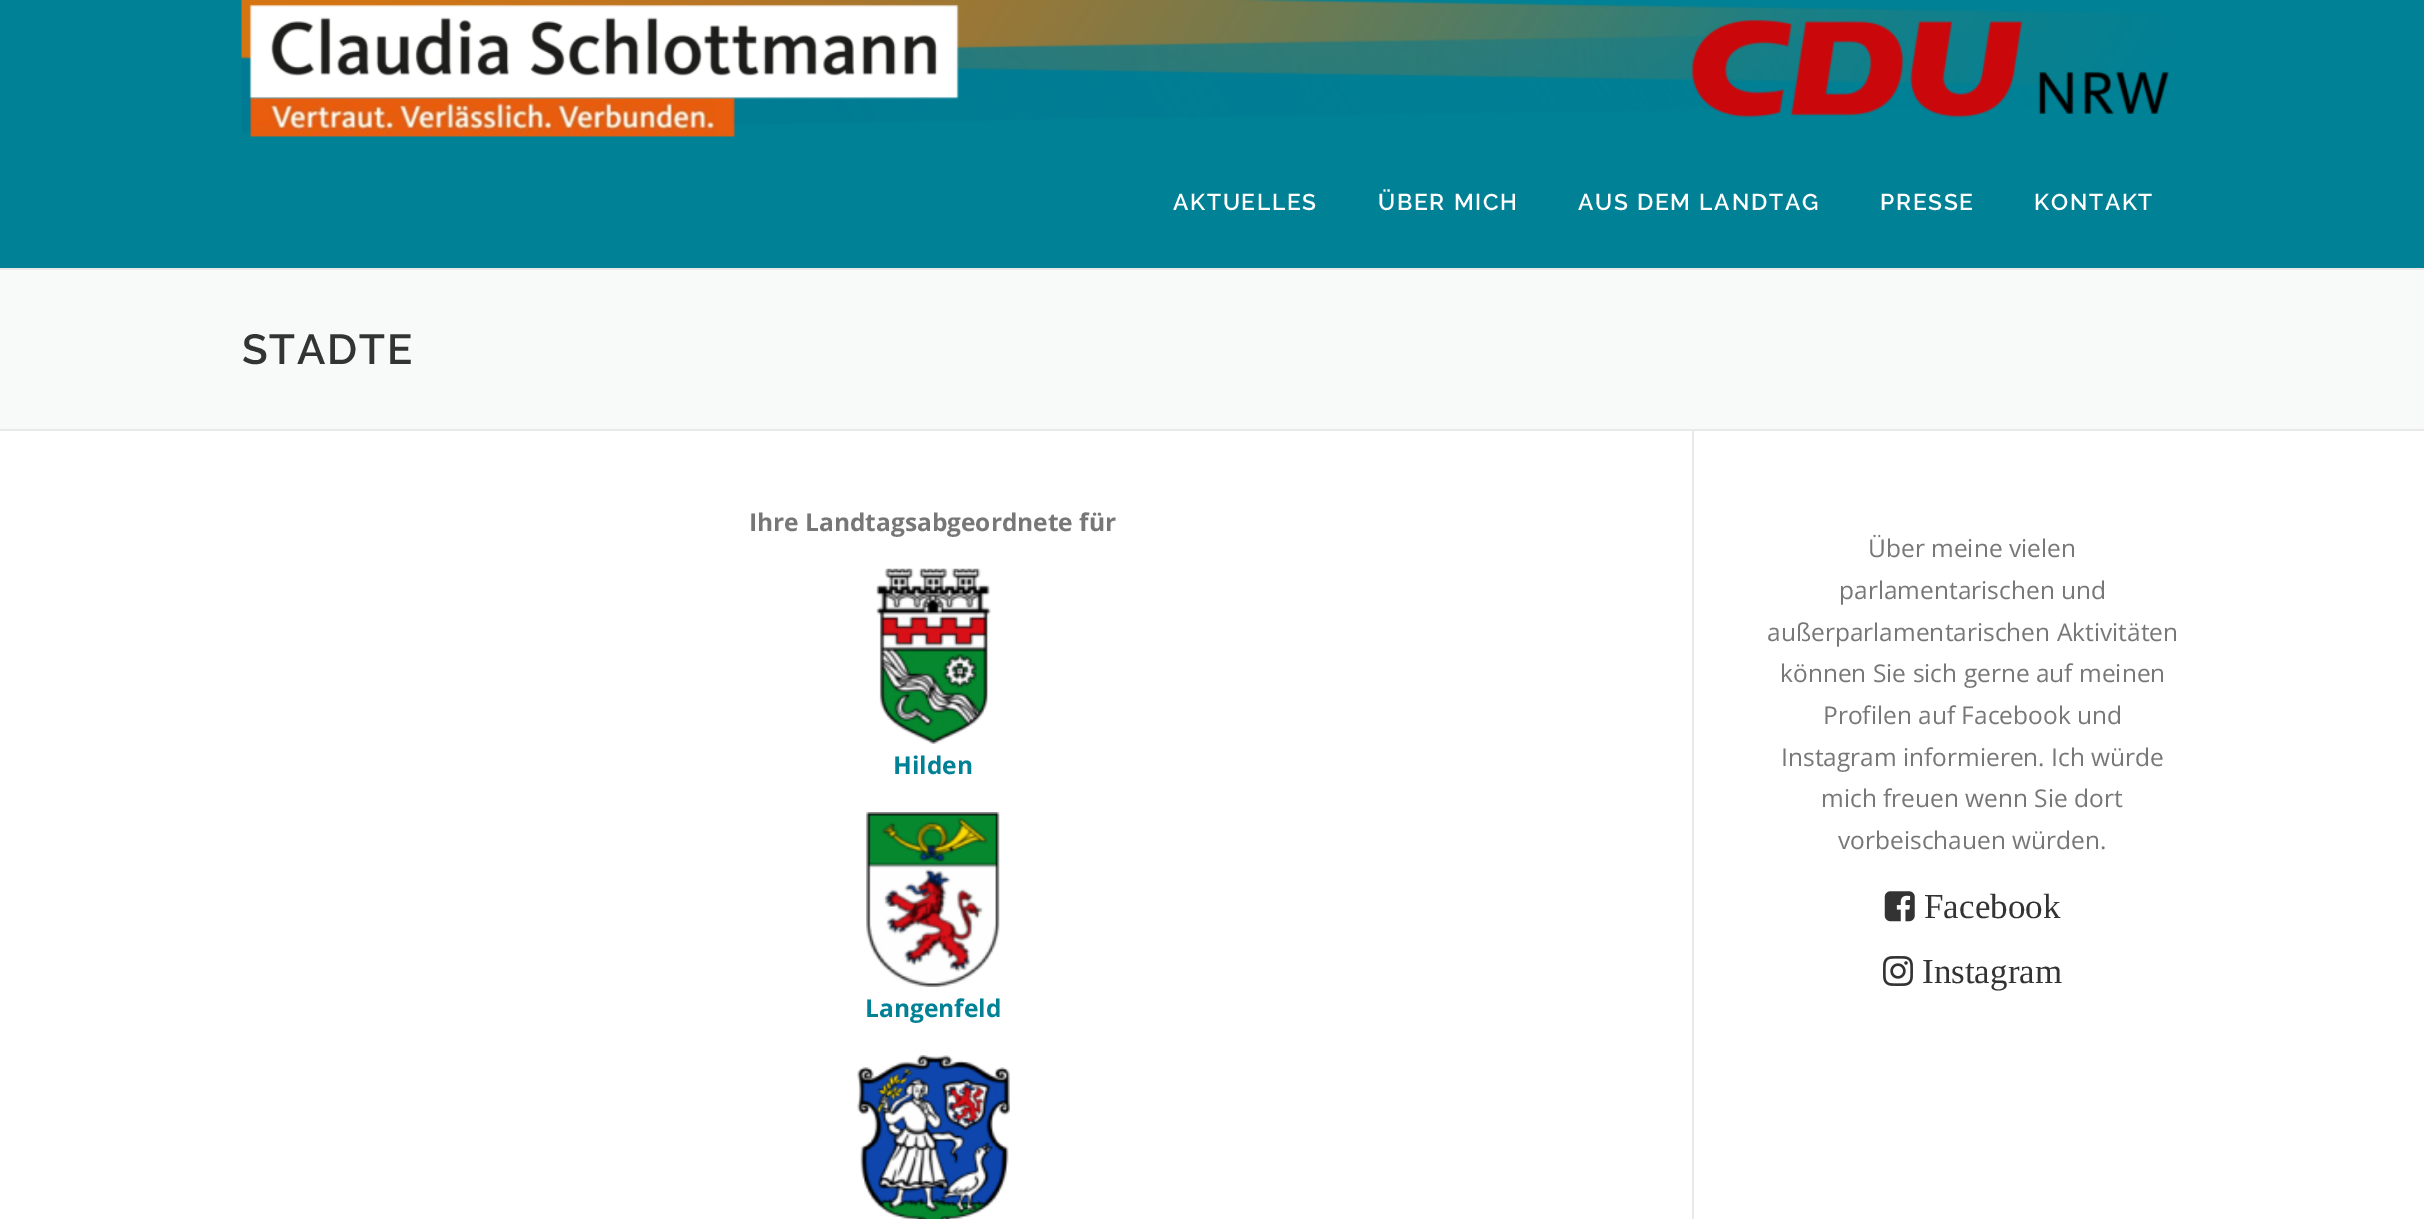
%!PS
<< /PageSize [2424 1219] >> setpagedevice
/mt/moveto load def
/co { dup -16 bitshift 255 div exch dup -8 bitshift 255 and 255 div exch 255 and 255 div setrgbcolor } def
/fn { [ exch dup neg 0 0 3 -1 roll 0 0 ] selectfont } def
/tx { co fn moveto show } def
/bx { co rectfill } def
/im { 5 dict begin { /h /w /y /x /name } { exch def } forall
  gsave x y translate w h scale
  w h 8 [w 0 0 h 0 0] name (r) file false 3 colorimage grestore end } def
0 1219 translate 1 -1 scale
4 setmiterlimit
0 0 2424 1219 16#FFFFFF bx
0 0 2424 268 16#008195 bx
(media/1.raw) 241 0 1928 137 im
0 270 2424 159 16#F8F9F9 bx
0 268 2424 2 16#E9E9E9 bx
0 429 2424 2 16#E9E9E9 bx
1692 431 2 788 16#E9E9E9 bx
(media/2.raw) 876 568 115 176 im
(media/3.raw) 866 812 134 175 im
(media/4.raw) 857 1055 153 164 im
(media/5.raw) 1884 891 31 31 im
(media/6.raw) 1883 956 30 30 im
/Raleway-SemiBold 22.75 fn
16#FFFFFF co
1173 210 mt 1.75 0 (AKTUELLES) ashow
1378 210 mt 1.75 0 (ÜBER MICH) ashow
1578 210 mt 1.75 0 (AUS DEM LANDTAG) ashow
1880 210 mt 1.75 0 (PRESSE) ashow
2034 210 mt 1.75 0 (KONTAKT) ashow
/Raleway-SemiBold 42 fn
16#333333 co
242 364 mt 1.75 0 (STADTE) ashow
(Ihre Landtagsabgeordnete für) 749 531 /OpenSans-Bold 24.5 16#777777 tx
(Hilden) 893 774 /OpenSans-Bold 24.5 16#008195 tx
(Langenfeld) 865 1017 /OpenSans-Bold 24.5 16#008195 tx
(Über meine vielen) 1868 557 /OpenSans-Regular 24.5 16#777777 tx
(parlamentarischen und) 1839 599 /OpenSans-Regular 24.5 16#777777 tx
(außerparlamentarischen Aktivitäten) 1767 641 /OpenSans-Regular 24.5 16#777777 tx
(können Sie sich gerne auf meinen) 1780 682 /OpenSans-Regular 24.5 16#777777 tx
(Profilen auf Facebook und) 1823 724 /OpenSans-Regular 24.5 16#777777 tx
(Instagram informieren. Ich würde) 1781 766 /OpenSans-Regular 24.5 16#777777 tx
(mich freuen wenn Sie dort) 1821 807 /OpenSans-Regular 24.5 16#777777 tx
(vorbeischauen würden.) 1838 849 /OpenSans-Regular 24.5 16#777777 tx
(Facebook) 1924 918 /LiberationSerif-Regular 35 16#333333 tx
(Instagram) 1922 983 /LiberationSerif-Regular 35 16#333333 tx
showpage
